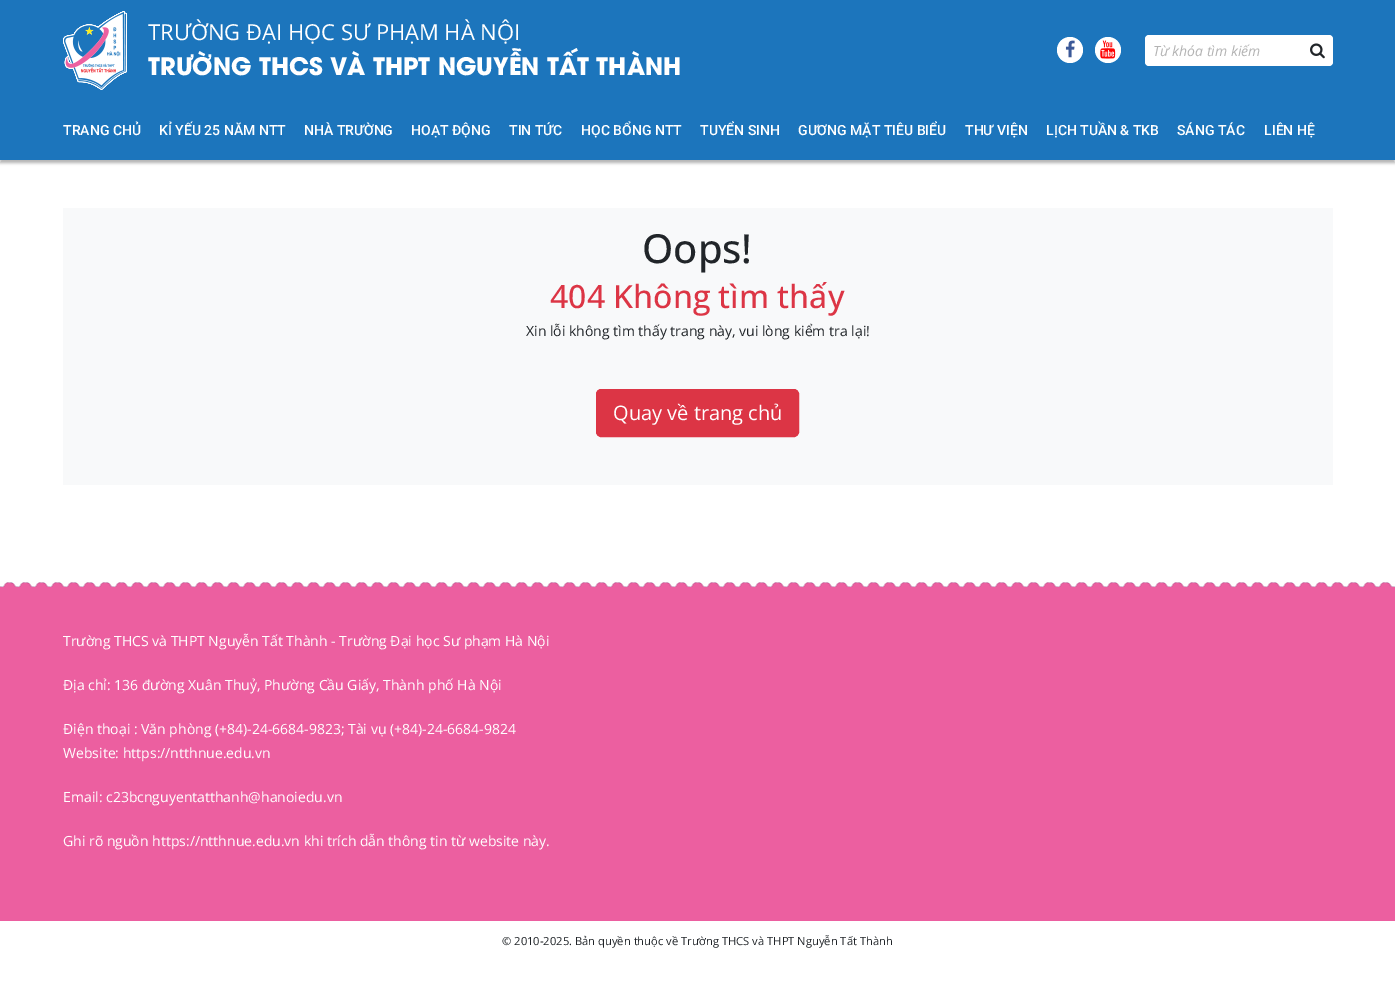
%!PS
<< /PageSize [1395 1007] /PageUsesTransparency true >> setpagedevice
/fl/fill load def
/st/stroke load def
/gs/gsave load def
/gr/grestore load def
/co { dup -16 bitshift 255 div exch dup -8 bitshift 255 and 255 div exch 255 and 255 div setrgbcolor } def
/fn { [ exch dup neg 0 0 3 -1 roll 0 0 ] selectfont } def
/tx { co fn moveto show } def
/bx { co rectfill } def
/al { dup .setfillconstantalpha .setstrokeconstantalpha } def
/ci { newpath 0 360 arc closepath } def
/rr { 5 dict begin { /r /h /w /y /x } { exch def } forall
  x r add y moveto x w add y 2 copy h add r arct x w add y h add x 1 index r arct
  x y h add x y r arct x y 2 copy exch w add exch r arct closepath end } def
/sh { 12 dict begin { /a /b /q /h /w /y /x } { exch def } forall gsave /was 0 def
  9 -2 -9 { dup b mul 4 div /e exch def 1 sub .425 mul 2.718 exch exp 1 add a .99 .min exch div /now exch def
    1 1 now sub 1 was sub div sub al /was now def
    w h .min e 2 mul add 0 gt { x e sub y e sub w e 2 mul add h e 2 mul add
      q e add b .6 mul add w h .min 2 div e add .min 0 .max rr fill } if } for grestore end } def
/im { 5 dict begin { /h /w /y /x /name } { exch def } forall
  gsave x y translate w h scale
  w h 8 [w 0 0 h 0 0] name (r) file false 3 colorimage grestore end } def
0 .pushpdf14devicefilter
0 1007 translate 1 -1 scale
4 setmiterlimit
0 0 1395 1007 16#FFFFFF bx
16#000000 co
0 3 1395 160 0 1.5 .3 sh
0 0 1395 160 16#1C75BC bx
(media/1.raw) 63 11 65 79 im
16#FFFFFF co
1070 50 13 ci fl
(media/2.raw) 1065 40 10 18 im
1108 50 13 ci fl
(media/3.raw) 1100 40 16 19 im
1145 35 188 31 4 rr fl
(media/4.raw) 1310 43 15 16 im
63 208 1270 277 16#F8F9FA bx
16#DC3545 co
596.5 389.5 202 47 4.5 rr gs fl gr
st
0 582 1395 339 16#EC5FA0 bx
(media/5.raw) 0 581 1395 6 im
(TRƯỜNG ĐẠI HỌC SƯ PHẠM HÀ NỘI) 148 40 /OpenSans-Regular 22 16#FFFFFF tx
(TRƯỜNG THCS VÀ THPT NGUYỄN TẤT THÀNH) 148 75 /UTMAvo-Bold 24 16#FFFFFF tx
(Từ khóa tìm kiếm) 1153 56 /OpenSans-Italic 14 16#B3B3B3 tx
(TRANG CHỦ) 63 135 /Roboto-Medium 14 16#FFFFFF tx
(KỈ YẾU 25 NĂM NTT) 159 135 /Roboto-Medium 14 16#FFFFFF tx
(NHÀ TRƯỜNG) 304 135 /Roboto-Medium 14 16#FFFFFF tx
(HOẠT ĐỘNG) 411 135 /Roboto-Medium 14 16#FFFFFF tx
(TIN TỨC) 509 135 /Roboto-Medium 14 16#FFFFFF tx
(HỌC BỔNG NTT) 581 135 /Roboto-Medium 14 16#FFFFFF tx
(TUYỂN SINH) 700 135 /Roboto-Medium 14 16#FFFFFF tx
(GƯƠNG MẶT TIÊU BIỂU) 798 135 /Roboto-Medium 14 16#FFFFFF tx
(THƯ VIỆN) 965 135 /Roboto-Medium 14 16#FFFFFF tx
(LỊCH TUẦN & TKB) 1046 135 /Roboto-Medium 14 16#FFFFFF tx
(SÁNG TÁC) 1177 135 /Roboto-Medium 14 16#FFFFFF tx
(LIÊN HỆ) 1264 135 /Roboto-Medium 14 16#FFFFFF tx
(Oops!) 642 263 /OpenSans-Medium 40 16#212529 tx
(404 Không tìm thấy) 550 308 /OpenSans-Medium 32 16#DC3545 tx
(Xin lỗi không tìm thấy trang này, vui lòng kiểm tra lại!) 526 336 /OpenSans-Regular 14 16#212529 tx
(Quay về trang chủ) 613 420 /OpenSans-Regular 20 16#FFFFFF tx
(Trường THCS và THPT Nguyễn Tất Thành - Trường Đại học Sư phạm Hà Nội) 63 646 /OpenSans-Regular 14 16#FFFFFF tx
(Địa chỉ: 136 đường Xuân Thuỷ, Phường Cầu Giấy, Thành phố Hà Nội) 63 690 /OpenSans-Regular 14 16#FFFFFF tx
(Điện thoại : Văn phòng \(+84\)-24-6684-9823; Tài vụ \(+84\)-24-6684-9824) 63 734 /OpenSans-Regular 14 16#FFFFFF tx
(Website: https://ntthnue.edu.vn) 63 758 /OpenSans-Regular 14 16#FFFFFF tx
(Email: c23bcnguyentatthanh@hanoiedu.vn) 63 802 /OpenSans-Regular 14 16#FFFFFF tx
(Ghi rõ nguồn https://ntthnue.edu.vn khi trích dẫn thông tin từ website này.) 63 846 /OpenSans-Regular 14 16#FFFFFF tx
(© 2010-2025. Bản quyền thuộc về Trường THCS và THPT Nguyễn Tất Thành) 502 945 /OpenSans-Regular 11.2 16#212529 tx
.poppdf14devicefilter showpage
